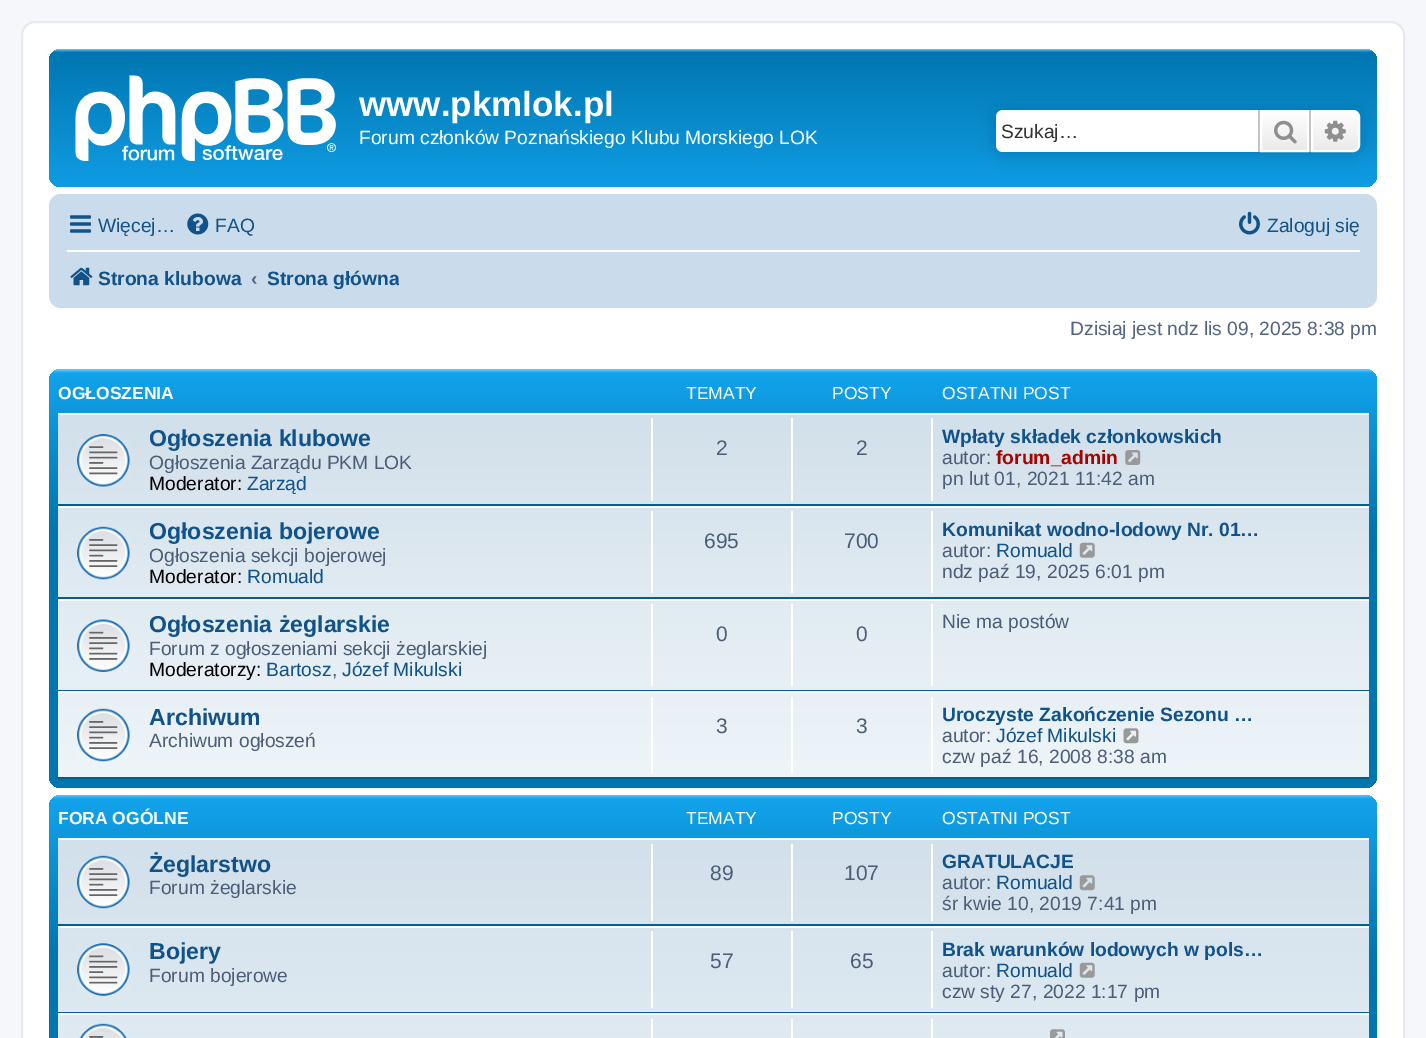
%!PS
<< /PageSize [1426 1038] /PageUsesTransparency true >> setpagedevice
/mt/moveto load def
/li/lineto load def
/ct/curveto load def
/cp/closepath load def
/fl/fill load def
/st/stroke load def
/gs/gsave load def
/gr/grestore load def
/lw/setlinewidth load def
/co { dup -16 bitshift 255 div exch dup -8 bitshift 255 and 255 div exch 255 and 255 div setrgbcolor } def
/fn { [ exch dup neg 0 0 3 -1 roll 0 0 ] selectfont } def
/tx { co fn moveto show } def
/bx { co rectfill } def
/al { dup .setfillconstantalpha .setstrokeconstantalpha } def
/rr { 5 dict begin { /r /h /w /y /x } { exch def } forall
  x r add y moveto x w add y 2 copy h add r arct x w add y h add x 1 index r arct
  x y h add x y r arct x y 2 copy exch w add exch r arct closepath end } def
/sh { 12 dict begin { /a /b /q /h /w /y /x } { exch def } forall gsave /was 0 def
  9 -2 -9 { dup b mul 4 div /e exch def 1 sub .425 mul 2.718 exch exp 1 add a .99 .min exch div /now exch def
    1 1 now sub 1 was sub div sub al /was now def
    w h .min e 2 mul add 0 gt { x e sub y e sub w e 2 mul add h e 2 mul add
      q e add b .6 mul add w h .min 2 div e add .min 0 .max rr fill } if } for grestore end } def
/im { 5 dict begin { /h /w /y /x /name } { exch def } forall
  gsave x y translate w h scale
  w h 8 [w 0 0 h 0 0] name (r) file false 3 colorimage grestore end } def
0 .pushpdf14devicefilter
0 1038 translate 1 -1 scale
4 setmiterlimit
0 0 1426 1038 16#F5F7FA bx
16#FFFFFF co
22 22 1382 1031 13 rr gs fl gr
16#E6E9ED co
2 lw
st
gs 49 49 1328 138 12 rr clip newpath
<< /ShadingType 2 /ColorSpace /DeviceRGB /Coords [713 49 713 210] /Extend [true true] /Function << /FunctionType 3 /Domain [0 1] /Functions [<< /FunctionType 2 /Domain [0 1] /C0 [.416 .808 1] /C1 [0 .463 .694] /N 1 >> << /FunctionType 2 /Domain [0 1] /C0 [0 .463 .694] /C1 [.071 .639 .922] /N 1 >>] /Bounds [.02] /Encode [0 1 0 1] >> >> shfill gr
(media/1.raw) 75 75 261 86 im
16#0075B0 co
996 110 364 42 7 9 1 sh
16#FFFFFF co
1003 110 mt 1258 110 li 1258 152 li 1003 152 li 999 152 996 149 996 145 ct 996 117 li 996 113 999 110 1003 110 ct cp fl
gs 1262 112 mt 1307 112 li 1307 150 li 1262 150 li cp clip newpath
<< /ShadingType 2 /ColorSpace /DeviceRGB /Coords [1285 110 1285 152] /Extend [true true] /Function << /FunctionType 2 /Domain [0 1] /C0 [1 1 1] /C1 [.914 .914 .914] /N 1 >> >> shfill gr
1261 111 47 40 rectstroke
1309 110 2 42 16#C7C3BF bx
1258 110 2 42 16#C7C3BF bx
(media/2.raw) 1274 120 23 24 im
gs 1312 111 mt 1353 111 li 1356.5 111 1359 113.5 1359 117 ct 1359 145 li 1359 148.5 1356.5 151 1353 151 ct 1312 151 li cp clip newpath
<< /ShadingType 2 /ColorSpace /DeviceRGB /Coords [1335 110 1335 152] /Extend [true true] /Function << /FunctionType 2 /Domain [0 1] /C0 [1 1 1] /C1 [.914 .914 .914] /N 1 >> >> shfill gr
16#FFFFFF co
1312 111 mt 1353 111 li 1356.5 111 1359 113.5 1359 117 ct 1359 145 li 1359 148.5 1356.5 151 1353 151 ct 1312 151 li cp st
(media/3.raw) 1324 120 22 22 im
16#CADCEB co
49 194 1328 114 12 rr fl
(media/4.raw) 70 215 21 18 im
(media/5.raw) 187 213 22 22 im
(media/6.raw) 1239 211 21 24 im
67 250 1293 2 16#FFFFFF bx
(media/7.raw) 70 267 23 19 im
gs 49 369 1328 419 12 rr clip newpath
<< /ShadingType 2 /ColorSpace /DeviceRGB /Coords [713 369 713 788] /Extend [true true] /Function << /FunctionType 3 /Domain [0 1] /Functions [<< /FunctionType 2 /Domain [0 1] /C0 [.416 .808 1] /C1 [.071 .639 .922] /N 1 >> << /FunctionType 2 /Domain [0 1] /C0 [.071 .639 .922] /C1 [0 .463 .694] /N 1 >> << /FunctionType 2 /Domain [0 1] /C0 [0 .463 .694] /C1 [0 .463 .694] /N 1 >>] /Bounds [.01 .38] /Encode [0 1 0 1 0 1] >> >> shfill gr
gs 58 415 mt 1369 415 li 1369 777 li 58 777 li cp clip newpath
<< /ShadingType 2 /ColorSpace /DeviceRGB /Coords [713 413 713 779] /Extend [true true] /Function << /FunctionType 2 /Domain [0 1] /C0 [.824 .878 .922] /C1 [.933 .961 .976] /N 1 >> >> shfill gr
58 413 1311 2 16#FFFFFF bx
58 504 1311 2 16#00608F bx
(media/8.raw) 77 434 53 53 im
651 418 2 83 16#FFFFFF bx
791 418 2 83 16#FFFFFF bx
931 418 2 83 16#FFFFFF bx
(media/9.raw) 1125 450 16 15 im
58 506 1311 2 16#FFFFFF bx
58 597 1311 2 16#00608F bx
(media/10.raw) 77 526 53 54 im
651 511 2 82 16#FFFFFF bx
791 511 2 82 16#FFFFFF bx
931 511 2 82 16#FFFFFF bx
(media/11.raw) 1079 542 16 16 im
58 599 1311 2 16#FFFFFF bx
58 690 1311 1 16#00608F bx
(media/12.raw) 77 619 53 53 im
651 604 2 82 16#FFFFFF bx
791 604 2 82 16#FFFFFF bx
931 604 2 82 16#FFFFFF bx
58 691 1311 2 16#FFFFFF bx
58 777 1311 2 16#00608F bx
(media/13.raw) 77 708 53 54 im
651 697 2 77 16#FFFFFF bx
791 697 2 77 16#FFFFFF bx
931 697 2 77 16#FFFFFF bx
(media/14.raw) 1123 728 16 16 im
gs 49 795 1328 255 12 rr clip newpath
<< /ShadingType 2 /ColorSpace /DeviceRGB /Coords [713 794 713 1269] /Extend [true true] /Function << /FunctionType 3 /Domain [0 1] /Functions [<< /FunctionType 2 /Domain [0 1] /C0 [.416 .808 1] /C1 [.071 .639 .922] /N 1 >> << /FunctionType 2 /Domain [0 1] /C0 [.071 .639 .922] /C1 [0 .463 .694] /N 1 >> << /FunctionType 2 /Domain [0 1] /C0 [0 .463 .694] /C1 [0 .463 .694] /N 1 >>] /Bounds [.01 .34] /Encode [0 1 0 1 0 1] >> >> shfill gr
gs 58 840 mt 1369 840 li 1369 1038 li 58 1038 li cp clip newpath
<< /ShadingType 2 /ColorSpace /DeviceRGB /Coords [713 838 713 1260] /Extend [true true] /Function << /FunctionType 2 /Domain [0 1] /C0 [.824 .878 .922] /C1 [.933 .961 .976] /N 1 >> >> shfill gr
58 838 1311 2 16#FFFFFF bx
58 924 1311 2 16#00608F bx
(media/15.raw) 77 855 53 54 im
651 844 2 77 16#FFFFFF bx
791 844 2 77 16#FFFFFF bx
931 844 2 77 16#FFFFFF bx
(media/16.raw) 1079 875 16 16 im
58 926 1311 2 16#FFFFFF bx
58 1012 1311 1 16#00608F bx
(media/17.raw) 77 943 53 53 im
651 931 2 77 16#FFFFFF bx
791 931 2 77 16#FFFFFF bx
931 931 2 77 16#FFFFFF bx
(media/18.raw) 1079 962 16 16 im
58 1013 1311 2 16#FFFFFF bx
(media/19.raw) 79 1023 48 15 im
651 1019 2 19 16#FFFFFF bx
791 1019 2 19 16#FFFFFF bx
931 1019 2 19 16#FFFFFF bx
(media/20.raw) 1050 1029 15 9 im
(www.pkmlok.pl) 359 116 /LiberationSans-Bold 35 16#FFFFFF tx
(Forum członków Poznańskiego Klubu Morskiego LOK) 359 144 /LiberationSans-Regular 19.25 16#FFFFFF tx
(Szukaj…) 1001 138 /LiberationSans-Regular 19.25 16#333333 tx
(Więcej…) 98 232 /LiberationSans-Regular 19.25 16#105289 tx
(FAQ) 215 232 /LiberationSans-Regular 19.25 16#105289 tx
(Zaloguj się) 1267 232 /LiberationSans-Regular 19.25 16#105289 tx
(Strona klubowa) 98 285 /LiberationSans-Bold 19.25 16#105289 tx
(‹) 251 285 /LiberationSans-Bold 19.25 16#536482 tx
gs
268 257 131 42 rectclip
(Strona główna) 267 285 /LiberationSans-Bold 19.25 16#105289 tx
gr
(Dzisiaj jest ndz lis 09, 2025 8:38 pm) 1070 335 /LiberationSans-Regular 19.25 16#536482 tx
(OGŁOSZENIA) 58 399 /LiberationSans-Bold 17.5 16#FFFFFF tx
(TEMATY) 686 399 /LiberationSans-Regular 17.5 16#FFFFFF tx
(POSTY) 832 399 /LiberationSans-Regular 17.5 16#FFFFFF tx
(OSTATNI POST) 942 399 /LiberationSans-Regular 17.5 16#FFFFFF tx
(Ogłoszenia klubowe) 149 446 /LiberationSans-Bold 23.1 16#105289 tx
(Ogłoszenia Zarządu PKM LOK) 149 469 /LiberationSans-Regular 19.25 16#4C5D77 tx
(Moderator:) 149 490 /LiberationSans-Regular 19.25 16#000000 tx
(Zarząd) 247 490 /LiberationSans-Regular 19.25 16#105289 tx
(2) 716 455 /LiberationSans-Regular 21 16#4C5D77 tx
(2) 856 455 /LiberationSans-Regular 21 16#4C5D77 tx
(Wpłaty składek członkowskich) 942 443 /LiberationSans-Bold 19.25 16#105289 tx
(autor:) 942 464 /LiberationSans-Regular 19.25 16#4C5D77 tx
(forum_admin) 996 464 /LiberationSans-Bold 19.25 16#AA0000 tx
(pn lut 01, 2021 11:42 am) 942 485 /LiberationSans-Regular 19.25 16#4C5D77 tx
(Ogłoszenia bojerowe) 149 539 /LiberationSans-Bold 23.1 16#105289 tx
(Ogłoszenia sekcji bojerowej) 149 562 /LiberationSans-Regular 19.25 16#4C5D77 tx
(Moderator:) 149 583 /LiberationSans-Regular 19.25 16#000000 tx
(Romuald) 247 583 /LiberationSans-Regular 19.25 16#105289 tx
(695) 704 548 /LiberationSans-Regular 21 16#4C5D77 tx
(700) 844 548 /LiberationSans-Regular 21 16#4C5D77 tx
(Komunikat wodno-lodowy Nr. 01…) 942 536 /LiberationSans-Bold 19.25 16#105289 tx
(autor:) 942 557 /LiberationSans-Regular 19.25 16#4C5D77 tx
(Romuald) 996 557 /LiberationSans-Regular 19.25 16#105289 tx
(ndz paź 19, 2025 6:01 pm) 942 578 /LiberationSans-Regular 19.25 16#4C5D77 tx
(Ogłoszenia żeglarskie) 149 632 /LiberationSans-Bold 23.1 16#105289 tx
(Forum z ogłoszeniami sekcji żeglarskiej) 149 655 /LiberationSans-Regular 19.25 16#4C5D77 tx
(Moderatorzy:) 149 676 /LiberationSans-Regular 19.25 16#000000 tx
(Bartosz) 266 676 /LiberationSans-Regular 19.25 16#105289 tx
(,) 332 676 /LiberationSans-Regular 19.25 16#4C5D77 tx
(Józef Mikulski) 342 676 /LiberationSans-Regular 19.25 16#105289 tx
(0) 716 641 /LiberationSans-Regular 21 16#4C5D77 tx
(0) 856 641 /LiberationSans-Regular 21 16#4C5D77 tx
(Nie ma postów) 942 628 /LiberationSans-Regular 19.25 16#4C5D77 tx
(Archiwum) 149 725 /LiberationSans-Bold 23.1 16#105289 tx
(Archiwum ogłoszeń) 149 747 /LiberationSans-Regular 19.25 16#4C5D77 tx
(3) 716 733 /LiberationSans-Regular 21 16#4C5D77 tx
(3) 856 733 /LiberationSans-Regular 21 16#4C5D77 tx
(Uroczyste Zakończenie Sezonu …) 942 721 /LiberationSans-Bold 19.25 16#105289 tx
(autor:) 942 742 /LiberationSans-Regular 19.25 16#4C5D77 tx
(Józef Mikulski) 996 742 /LiberationSans-Regular 19.25 16#105289 tx
(czw paź 16, 2008 8:38 am) 942 763 /LiberationSans-Regular 19.25 16#4C5D77 tx
(FORA OGÓLNE) 58 824 /LiberationSans-Bold 17.5 16#FFFFFF tx
(TEMATY) 686 824 /LiberationSans-Regular 17.5 16#FFFFFF tx
(POSTY) 832 824 /LiberationSans-Regular 17.5 16#FFFFFF tx
(OSTATNI POST) 942 824 /LiberationSans-Regular 17.5 16#FFFFFF tx
(Żeglarstwo) 149 872 /LiberationSans-Bold 23.1 16#105289 tx
(Forum żeglarskie) 149 894 /LiberationSans-Regular 19.25 16#4C5D77 tx
(89) 710 880 /LiberationSans-Regular 21 16#4C5D77 tx
(107) 844 880 /LiberationSans-Regular 21 16#4C5D77 tx
(GRATULACJE) 942 868 /LiberationSans-Bold 19.25 16#105289 tx
(autor:) 942 889 /LiberationSans-Regular 19.25 16#4C5D77 tx
(Romuald) 996 889 /LiberationSans-Regular 19.25 16#105289 tx
(śr kwie 10, 2019 7:41 pm) 942 910 /LiberationSans-Regular 19.25 16#4C5D77 tx
(Bojery) 149 959 /LiberationSans-Bold 23.1 16#105289 tx
(Forum bojerowe) 149 982 /LiberationSans-Regular 19.25 16#4C5D77 tx
(57) 710 968 /LiberationSans-Regular 21 16#4C5D77 tx
(65) 850 968 /LiberationSans-Regular 21 16#4C5D77 tx
(Brak warunków lodowych w pols…) 942 956 /LiberationSans-Bold 19.25 16#105289 tx
(autor:) 942 977 /LiberationSans-Regular 19.25 16#4C5D77 tx
(Romuald) 996 977 /LiberationSans-Regular 19.25 16#105289 tx
(czw sty 27, 2022 1:17 pm) 942 998 /LiberationSans-Regular 19.25 16#4C5D77 tx
.poppdf14devicefilter showpage
